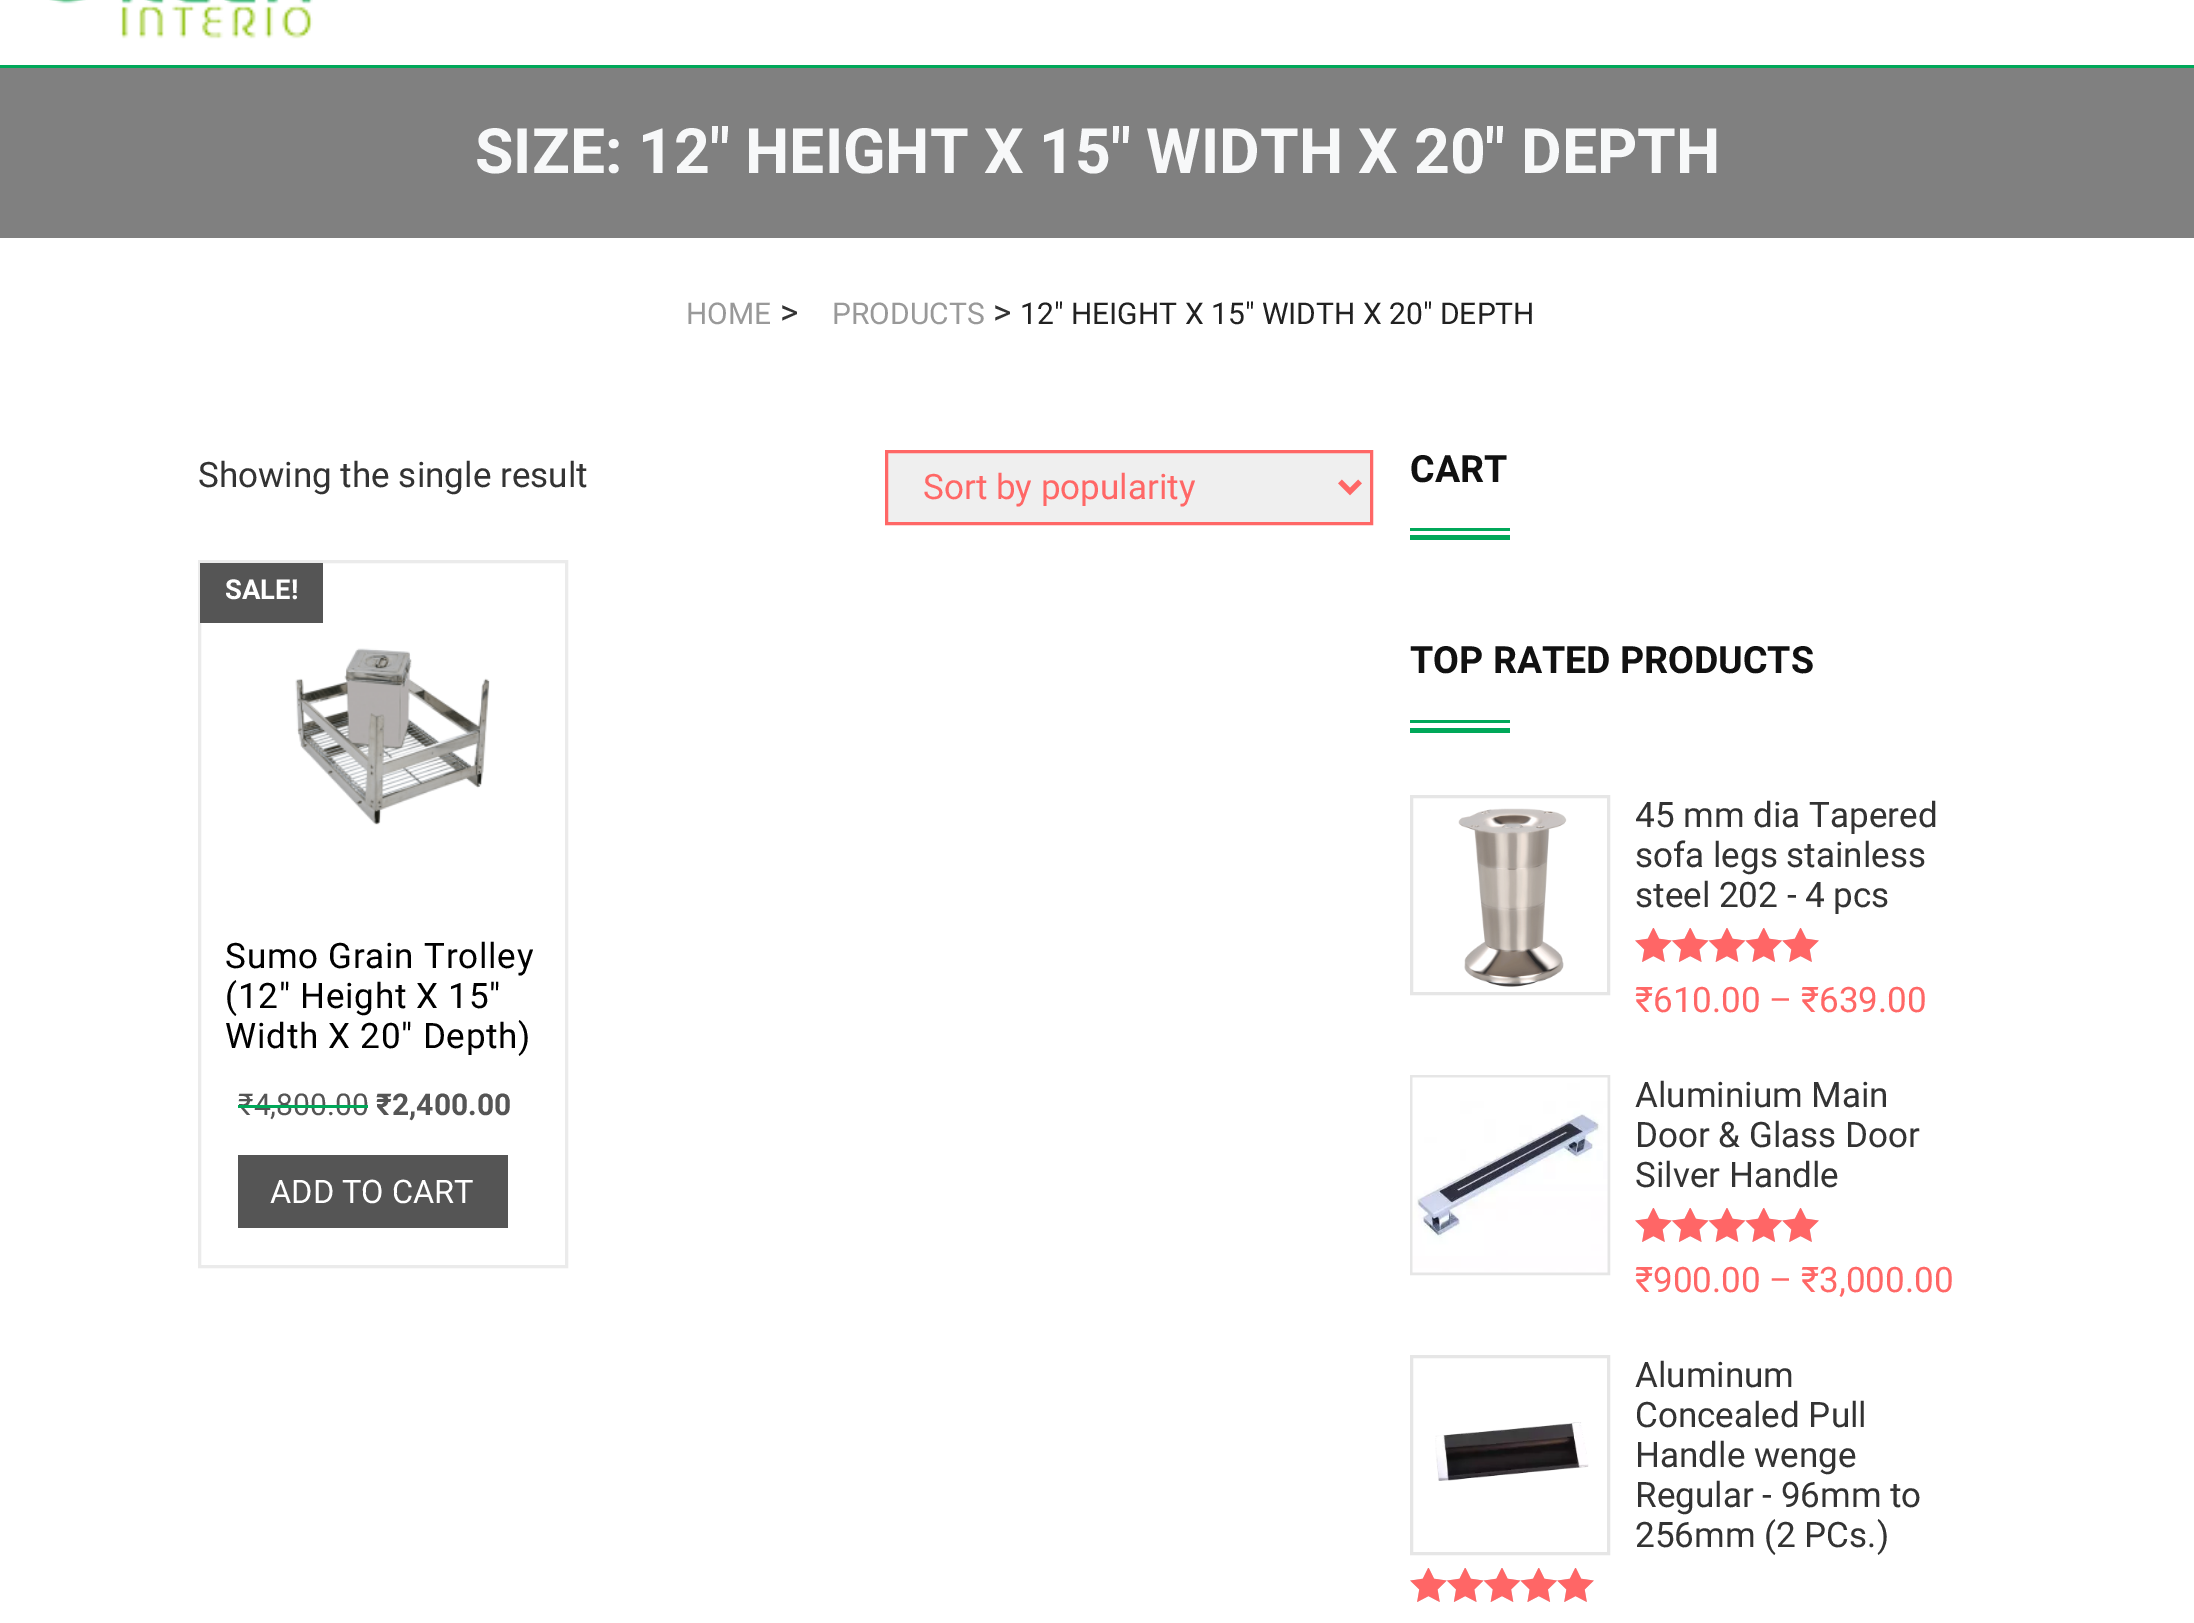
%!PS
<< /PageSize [2194 1623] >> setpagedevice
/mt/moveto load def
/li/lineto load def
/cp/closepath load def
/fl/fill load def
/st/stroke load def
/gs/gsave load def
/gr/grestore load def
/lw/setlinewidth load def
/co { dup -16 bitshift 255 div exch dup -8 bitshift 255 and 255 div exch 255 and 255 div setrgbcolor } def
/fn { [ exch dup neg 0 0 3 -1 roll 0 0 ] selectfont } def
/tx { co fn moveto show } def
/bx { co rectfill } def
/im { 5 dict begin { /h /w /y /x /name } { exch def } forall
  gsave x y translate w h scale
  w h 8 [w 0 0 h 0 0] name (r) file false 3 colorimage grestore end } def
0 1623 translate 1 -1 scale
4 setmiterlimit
0 0 2194 1623 16#FFFFFF bx
0 65 2194 3 16#00A859 bx
(media/1.raw) 49 0 264 39 im
0 68 2194 170 16#808080 bx
16#EFEFEF co
886.5 451.5 mt 1371.5 451.5 li 1371.5 523.5 li 886.5 523.5 li cp gs fl gr
16#FF6766 co
3 lw
st
5 lw
1340 481.5 mt 1350 491.5 li 1360 481.5 li st
16#EBEBEB co
3 lw
199.5 561.5 367 705 rectstroke
200 563 123 60 16#555555 bx
(media/2.raw) 295 648 195 177 im
238 1155 270 73 16#555555 bx
1410 528 100 3 16#00A859 bx
1410 535 100 5 16#00A859 bx
1410 720 100 3 16#00A859 bx
1410 728 100 5 16#00A859 bx
16#E6E6E6 co
1411.5 796.5 197 197 rectstroke
(media/3.raw) 1458 808 109 179 im
(media/4.raw) 1635 928 184 34 im
(media/5.raw) 1635 928 184 34 im
1411.5 1076.5 197 197 rectstroke
(media/6.raw) 1412 1077 196 196 im
(media/4.raw) 1635 1208 184 34 im
(media/5.raw) 1635 1208 184 34 im
1411.5 1356.5 197 197 rectstroke
(media/7.raw) 1435 1422 154 59 im
(media/4.raw) 1410 1568 184 34 im
(media/5.raw) 1410 1568 184 34 im
(SIZE: 12" HEIGHT X 15" WIDTH X 20" DEPTH) 475 173 /Roboto-Bold 62.5 16#F7F8F9 tx
(HOME) 686 324 /Roboto-Regular 30 16#999999 tx
(>) 780 324 /Roboto-Regular 35 16#333333 tx
(PRODUCTS) 832 324 /Roboto-Regular 30 16#999999 tx
(>) 993 324 /Roboto-Regular 35 16#333333 tx
(12" HEIGHT X 15" WIDTH X 20" DEPTH) 1020 324 /Roboto-Regular 30 16#212121 tx
(Showing the single result) 198 487 /Roboto-Regular 35 16#333333 tx
(Sort by popularity) 923 499 /Roboto-Regular 35 16#FF6766 tx
(SALE!) 225 599 /Roboto-Bold 27.5 16#FFFFFF tx
/Roboto-Regular 35 fn
16#000000 co
225 968 mt .75 0 (Sumo Grain Trolley) ashow
225 1008 mt .75 0 (\(12″ Height X 15″) ashow
225 1048 mt .75 0 (Width X 20″ Depth\)) ashow
(₹4,800.00) 238 1115 /Roboto-Regular 30 16#555555 tx
238 1105 130 3 16#00A859 bx
(₹2,400.00) 376 1115 /Roboto-Bold 30 16#555555 tx
(ADD TO CART) 270 1203 /Roboto-Regular 32.5 16#FFFFFF tx
(CART) 1410 482 /Roboto-Bold 37.5 16#111111 tx
(TOP RATED PRODUCTS) 1410 673 /Roboto-Bold 37.5 16#111111 tx
(45 mm dia Tapered) 1635 827 /Roboto-Regular 35 16#333333 tx
(sofa legs stainless) 1635 867 /Roboto-Regular 35 16#333333 tx
(steel 202 - 4 pcs) 1635 907 /Roboto-Regular 35 16#333333 tx
(₹610.00 – ₹639.00) 1635 1012 /Roboto-Regular 35 16#FF6766 tx
(Aluminium Main) 1635 1107 /Roboto-Regular 35 16#333333 tx
(Door & Glass Door) 1635 1147 /Roboto-Regular 35 16#333333 tx
(Silver Handle) 1635 1187 /Roboto-Regular 35 16#333333 tx
(₹900.00 – ₹3,000.00) 1635 1292 /Roboto-Regular 35 16#FF6766 tx
(Aluminum) 1635 1387 /Roboto-Regular 35 16#333333 tx
(Concealed Pull) 1635 1427 /Roboto-Regular 35 16#333333 tx
(Handle wenge) 1635 1467 /Roboto-Regular 35 16#333333 tx
(Regular - 96mm to) 1635 1507 /Roboto-Regular 35 16#333333 tx
(256mm \(2 PCs.\)) 1635 1547 /Roboto-Regular 35 16#333333 tx
showpage
